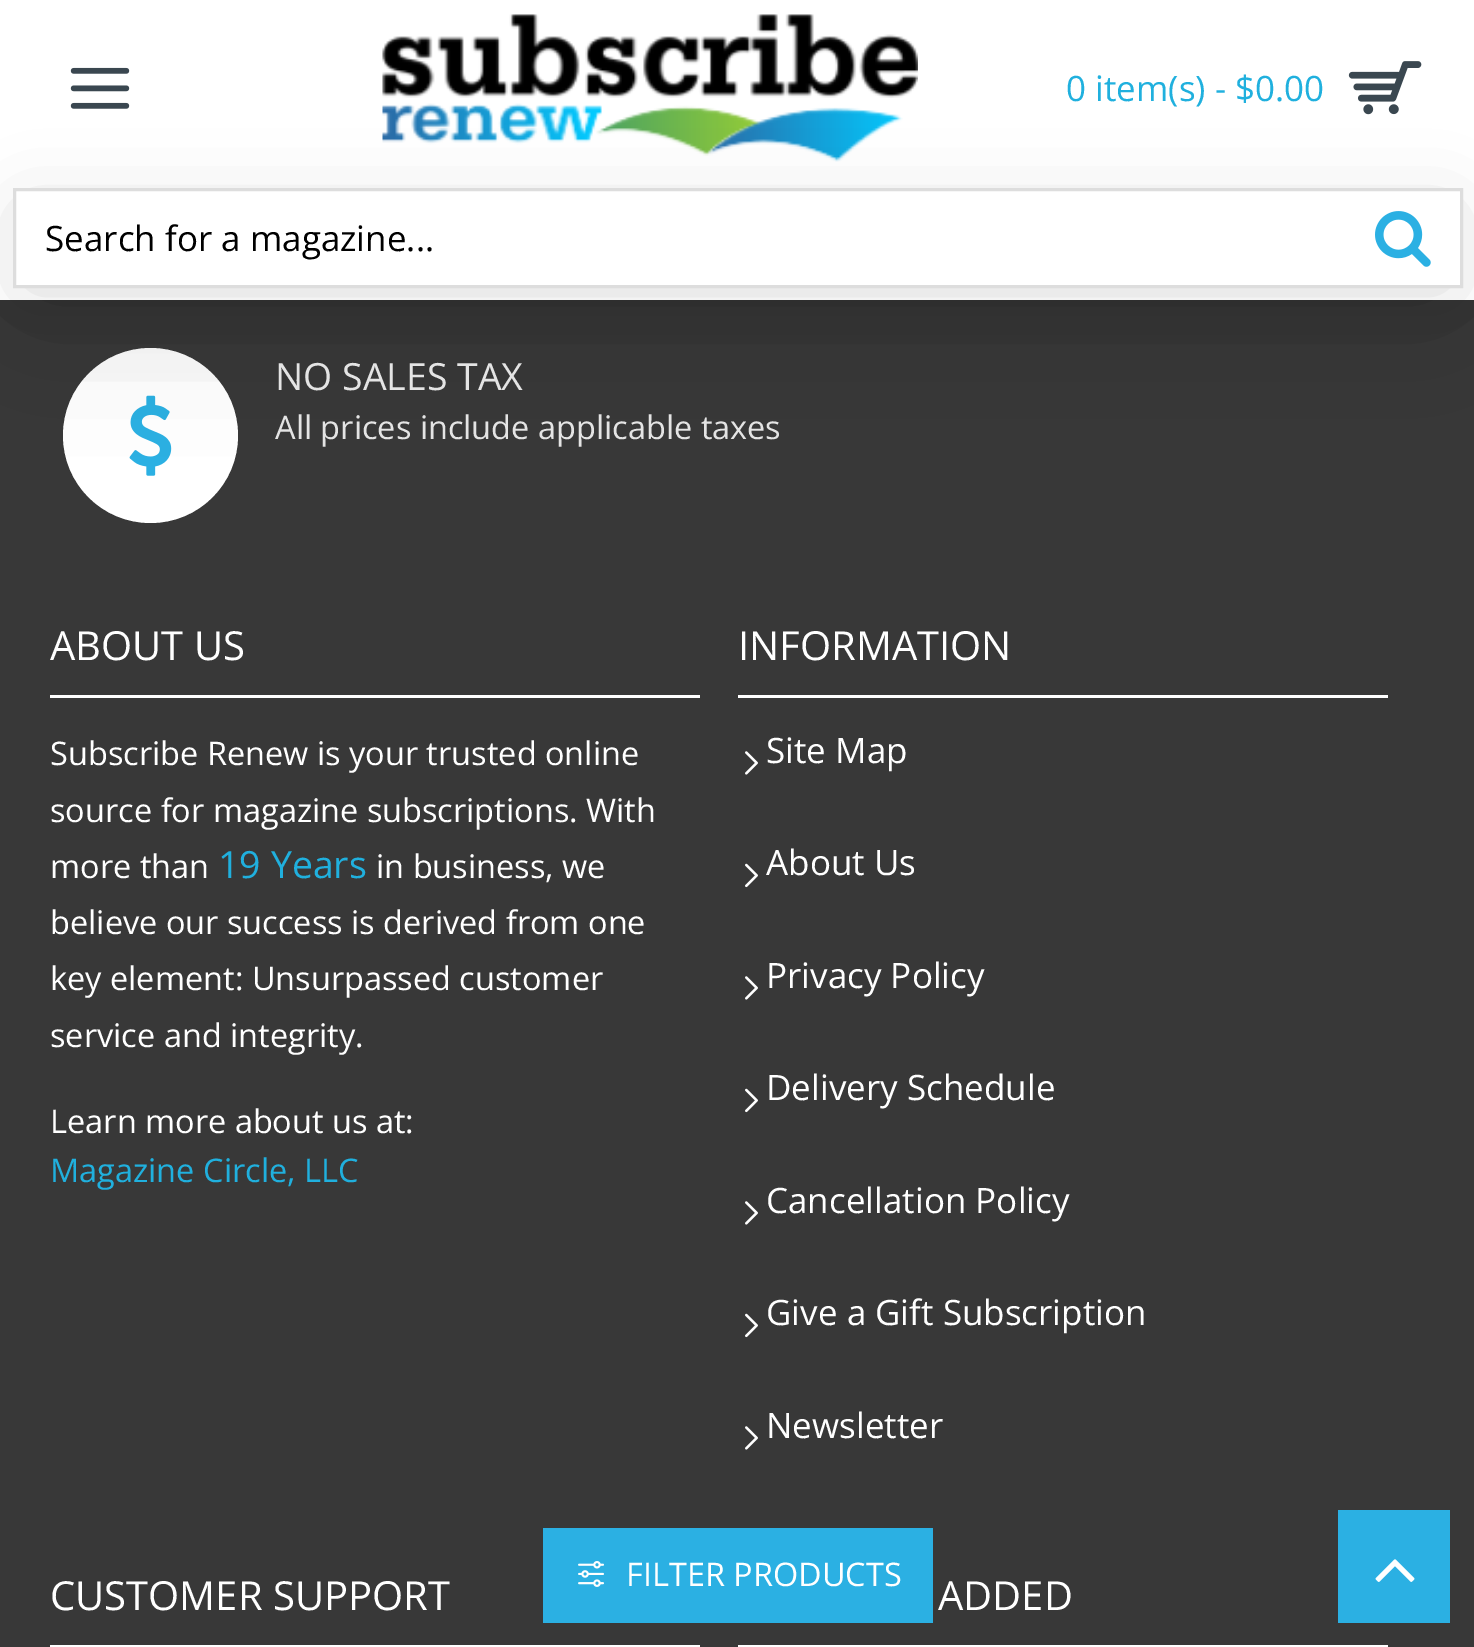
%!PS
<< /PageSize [1474 1647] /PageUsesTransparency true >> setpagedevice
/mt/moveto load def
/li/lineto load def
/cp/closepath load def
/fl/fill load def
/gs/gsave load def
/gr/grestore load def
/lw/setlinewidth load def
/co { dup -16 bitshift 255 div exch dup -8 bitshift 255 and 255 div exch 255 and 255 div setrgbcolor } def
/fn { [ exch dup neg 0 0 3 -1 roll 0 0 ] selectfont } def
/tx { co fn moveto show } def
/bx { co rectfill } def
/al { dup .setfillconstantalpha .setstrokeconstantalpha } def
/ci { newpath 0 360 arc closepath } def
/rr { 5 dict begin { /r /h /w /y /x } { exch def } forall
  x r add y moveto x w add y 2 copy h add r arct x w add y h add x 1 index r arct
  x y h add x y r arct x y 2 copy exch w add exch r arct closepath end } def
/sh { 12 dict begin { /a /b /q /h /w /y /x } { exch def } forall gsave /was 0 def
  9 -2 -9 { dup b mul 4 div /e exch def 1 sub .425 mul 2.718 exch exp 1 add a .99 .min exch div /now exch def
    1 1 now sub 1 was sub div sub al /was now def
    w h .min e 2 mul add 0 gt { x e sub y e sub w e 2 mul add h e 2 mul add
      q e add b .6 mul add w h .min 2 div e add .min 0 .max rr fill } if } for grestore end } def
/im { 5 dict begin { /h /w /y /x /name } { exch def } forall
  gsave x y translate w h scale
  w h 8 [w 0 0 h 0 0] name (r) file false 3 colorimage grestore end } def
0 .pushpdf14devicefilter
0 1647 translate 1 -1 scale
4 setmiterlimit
0 0 1474 1647 16#383838 bx
16#FFFFFF co
150.5 435.5 87.5 ci fl
(media/5.raw) 129 395 43 81 im
16#000000 co
25 -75 1425 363 0 75 .3 sh
0 0 1474 300 16#FFFFFF bx
(media/1.raw) 70 67 60 42 im
(media/2.raw) 382 14 536 148 im
(media/3.raw) 1348 61 74 54 im
gs
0 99 mt 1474 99 li 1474 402 li 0 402 li cp 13 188 mt 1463 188 li 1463 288 li 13 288 li cp eoclip newpath
16#000000 co
25 213 1425 75 0 37.5 .15 sh
gr
16#DDDDDD co
3 lw
14.5 189.5 1447 97 rectstroke
(media/4.raw) 1375 211 56 56 im
50 695 650 3 16#FFFFFF bx
738 695 650 3 16#FFFFFF bx
(media/6.raw) 745 751 13 24 im
(media/7.raw) 745 863 13 25 im
(media/6.raw) 745 976 13 24 im
(media/7.raw) 745 1088 13 25 im
(media/6.raw) 745 1201 13 24 im
(media/7.raw) 745 1313 13 25 im
(media/6.raw) 745 1426 13 24 im
50 1645 650 2 16#FFFFFF bx
738 1645 650 2 16#FFFFFF bx
1338 1510 112 113 16#2BB0E3 bx
(media/8.raw) 1375 1559 40 23 im
543 1528 390 95 16#2BB0E3 bx
(media/9.raw) 578 1561 26 26 im
(0 item\(s\) - $0.00) 1066 101 /OpenSans-Regular 35 16#20B0DE tx
(Search for a magazine...) 45 251 /OpenSans-Regular 35 16#000000 tx
(NO SALES TAX) 275 390 /OpenSans-Regular 37.5 16#E4E4E4 tx
(All prices include applicable taxes) 275 439 /OpenSans-Regular 32.5 16#E4E4E4 tx
(ABOUT US) 50 660 /OpenSans-Regular 40 16#FFFFFF tx
(Subscribe Renew is your trusted online) 50 765 /OpenSans-Regular 32.5 16#FFFFFF tx
(source for magazine subscriptions. With) 50 822 /OpenSans-Regular 32.5 16#FFFFFF tx
(more than) 50 878 /OpenSans-Regular 32.5 16#FFFFFF tx
(19 Years) 218 878 /OpenSans-Regular 37.5 16#20B0DE tx
(in business, we) 376 878 /OpenSans-Regular 32.5 16#FFFFFF tx
(believe our success is derived from one) 50 934 /OpenSans-Regular 32.5 16#FFFFFF tx
(key element: Unsurpassed customer) 50 990 /OpenSans-Regular 32.5 16#FFFFFF tx
(service and integrity.) 50 1047 /OpenSans-Regular 32.5 16#FFFFFF tx
(Learn more about us at:) 50 1133 /OpenSans-Regular 32.5 16#FFFFFF tx
(Magazine Circle, LLC) 50 1182 /OpenSans-Regular 32.5 16#20B0DE tx
(INFORMATION) 738 660 /OpenSans-Regular 40 16#FFFFFF tx
(Site Map) 766 763 /OpenSans-Regular 35 16#FFFFFF tx
(About Us) 766 875 /OpenSans-Regular 35 16#FFFFFF tx
(Privacy Policy) 766 988 /OpenSans-Regular 35 16#FFFFFF tx
(Delivery Schedule) 766 1100 /OpenSans-Regular 35 16#FFFFFF tx
(Cancellation Policy) 766 1213 /OpenSans-Regular 35 16#FFFFFF tx
(Give a Gift Subscription) 766 1325 /OpenSans-Regular 35 16#FFFFFF tx
(Newsletter) 766 1438 /OpenSans-Regular 35 16#FFFFFF tx
(CUSTOMER SUPPORT) 50 1610 /OpenSans-Regular 40 16#FFFFFF tx
(ADDED) 938 1610 /OpenSans-Regular 40 16#FFFFFF tx
(FILTER PRODUCTS) 626 1586 /OpenSans-Regular 32.5 16#FFFFFF tx
.poppdf14devicefilter showpage
